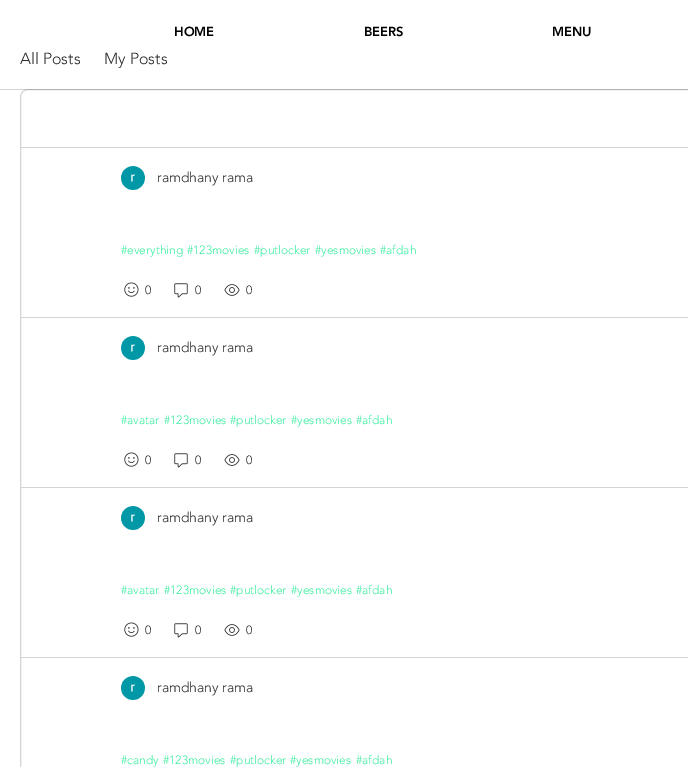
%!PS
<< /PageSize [688 767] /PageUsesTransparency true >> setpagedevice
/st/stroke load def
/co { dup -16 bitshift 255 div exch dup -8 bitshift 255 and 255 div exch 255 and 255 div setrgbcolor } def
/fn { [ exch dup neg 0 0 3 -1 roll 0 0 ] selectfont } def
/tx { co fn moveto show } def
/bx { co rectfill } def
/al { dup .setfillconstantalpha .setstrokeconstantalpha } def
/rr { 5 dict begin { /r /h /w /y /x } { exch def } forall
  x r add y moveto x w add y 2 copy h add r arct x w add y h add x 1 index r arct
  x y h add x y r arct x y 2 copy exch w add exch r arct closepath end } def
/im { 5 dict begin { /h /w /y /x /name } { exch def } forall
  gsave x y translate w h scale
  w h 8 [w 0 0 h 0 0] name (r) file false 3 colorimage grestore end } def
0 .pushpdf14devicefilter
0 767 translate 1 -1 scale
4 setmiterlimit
0 0 688 767 16#FFFFFF bx
0 89 688 1 16#D4D4D4 bx
0.2 al
16#2A2A2A co
20.5 89.5 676 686 7.5 rr st
1 al
21 147 667 1 16#D4D4D4 bx
(media/1.raw) 121 166 24 24 im
(media/2.raw) 124 282 15 15 im
(media/3.raw) 174 283 14 15 im
(media/4.raw) 224 284 16 12 im
21 317 667 1 16#D4D4D4 bx
(media/1.raw) 121 336 24 24 im
(media/2.raw) 124 452 15 15 im
(media/3.raw) 174 453 14 15 im
(media/4.raw) 224 454 16 12 im
21 487 667 1 16#D4D4D4 bx
(media/5.raw) 121 506 24 24 im
(media/2.raw) 124 622 15 15 im
(media/3.raw) 174 623 14 15 im
(media/4.raw) 224 624 16 12 im
21 657 667 1 16#D4D4D4 bx
(media/1.raw) 121 676 24 24 im
(HOME) 174 36 /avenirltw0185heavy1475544-Black 13 16#000000 tx
(BEERS) 364 36 /avenirltw0185heavy1475544-Black 13 16#000000 tx
(MENU) 552 36 /avenirltw0185heavy1475544-Black 13 16#000000 tx
(All Posts) 20 64 /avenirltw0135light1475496-Light 16 16#2A2A2A tx
(My Posts) 104 64 /avenirltw0135light1475496-Light 16 16#2A2A2A tx
(ramdhany rama) 157 182 /avenirltw0135light1475496-Light 14 16#2A2A2A tx
(#everything) 121 254 /avenirltw0135light1475496-Light 12 16#39ED9E tx
(#123movies) 187 254 /avenirltw0135light1475496-Light 12 16#39ED9E tx
(#putlocker) 254 254 /avenirltw0135light1475496-Light 12 16#39ED9E tx
(#yesmovies) 315 254 /avenirltw0135light1475496-Light 12 16#39ED9E tx
(#afdah) 380 254 /avenirltw0135light1475496-Light 12 16#39ED9E tx
(0) 145 294 /avenirltw0135light1475496-Light 12 16#2A2A2A tx
(0) 195 294 /avenirltw0135light1475496-Light 12 16#2A2A2A tx
(0) 246 294 /avenirltw0135light1475496-Light 12 16#2A2A2A tx
(ramdhany rama) 157 352 /avenirltw0135light1475496-Light 14 16#2A2A2A tx
(#avatar) 121 424 /avenirltw0135light1475496-Light 12 16#39ED9E tx
(#123movies) 164 424 /avenirltw0135light1475496-Light 12 16#39ED9E tx
(#putlocker) 230 424 /avenirltw0135light1475496-Light 12 16#39ED9E tx
(#yesmovies) 291 424 /avenirltw0135light1475496-Light 12 16#39ED9E tx
(#afdah) 356 424 /avenirltw0135light1475496-Light 12 16#39ED9E tx
(0) 145 464 /avenirltw0135light1475496-Light 12 16#2A2A2A tx
(0) 195 464 /avenirltw0135light1475496-Light 12 16#2A2A2A tx
(0) 246 464 /avenirltw0135light1475496-Light 12 16#2A2A2A tx
(ramdhany rama) 157 522 /avenirltw0135light1475496-Light 14 16#2A2A2A tx
(#avatar) 121 594 /avenirltw0135light1475496-Light 12 16#39ED9E tx
(#123movies) 164 594 /avenirltw0135light1475496-Light 12 16#39ED9E tx
(#putlocker) 230 594 /avenirltw0135light1475496-Light 12 16#39ED9E tx
(#yesmovies) 291 594 /avenirltw0135light1475496-Light 12 16#39ED9E tx
(#afdah) 356 594 /avenirltw0135light1475496-Light 12 16#39ED9E tx
(0) 145 634 /avenirltw0135light1475496-Light 12 16#2A2A2A tx
(0) 195 634 /avenirltw0135light1475496-Light 12 16#2A2A2A tx
(0) 246 634 /avenirltw0135light1475496-Light 12 16#2A2A2A tx
(ramdhany rama) 157 692 /avenirltw0135light1475496-Light 14 16#2A2A2A tx
(#candy) 121 764 /avenirltw0135light1475496-Light 12 16#39ED9E tx
(#123movies) 163 764 /avenirltw0135light1475496-Light 12 16#39ED9E tx
(#putlocker) 230 764 /avenirltw0135light1475496-Light 12 16#39ED9E tx
(#yesmovies) 290 764 /avenirltw0135light1475496-Light 12 16#39ED9E tx
(#afdah) 356 764 /avenirltw0135light1475496-Light 12 16#39ED9E tx
.poppdf14devicefilter showpage
